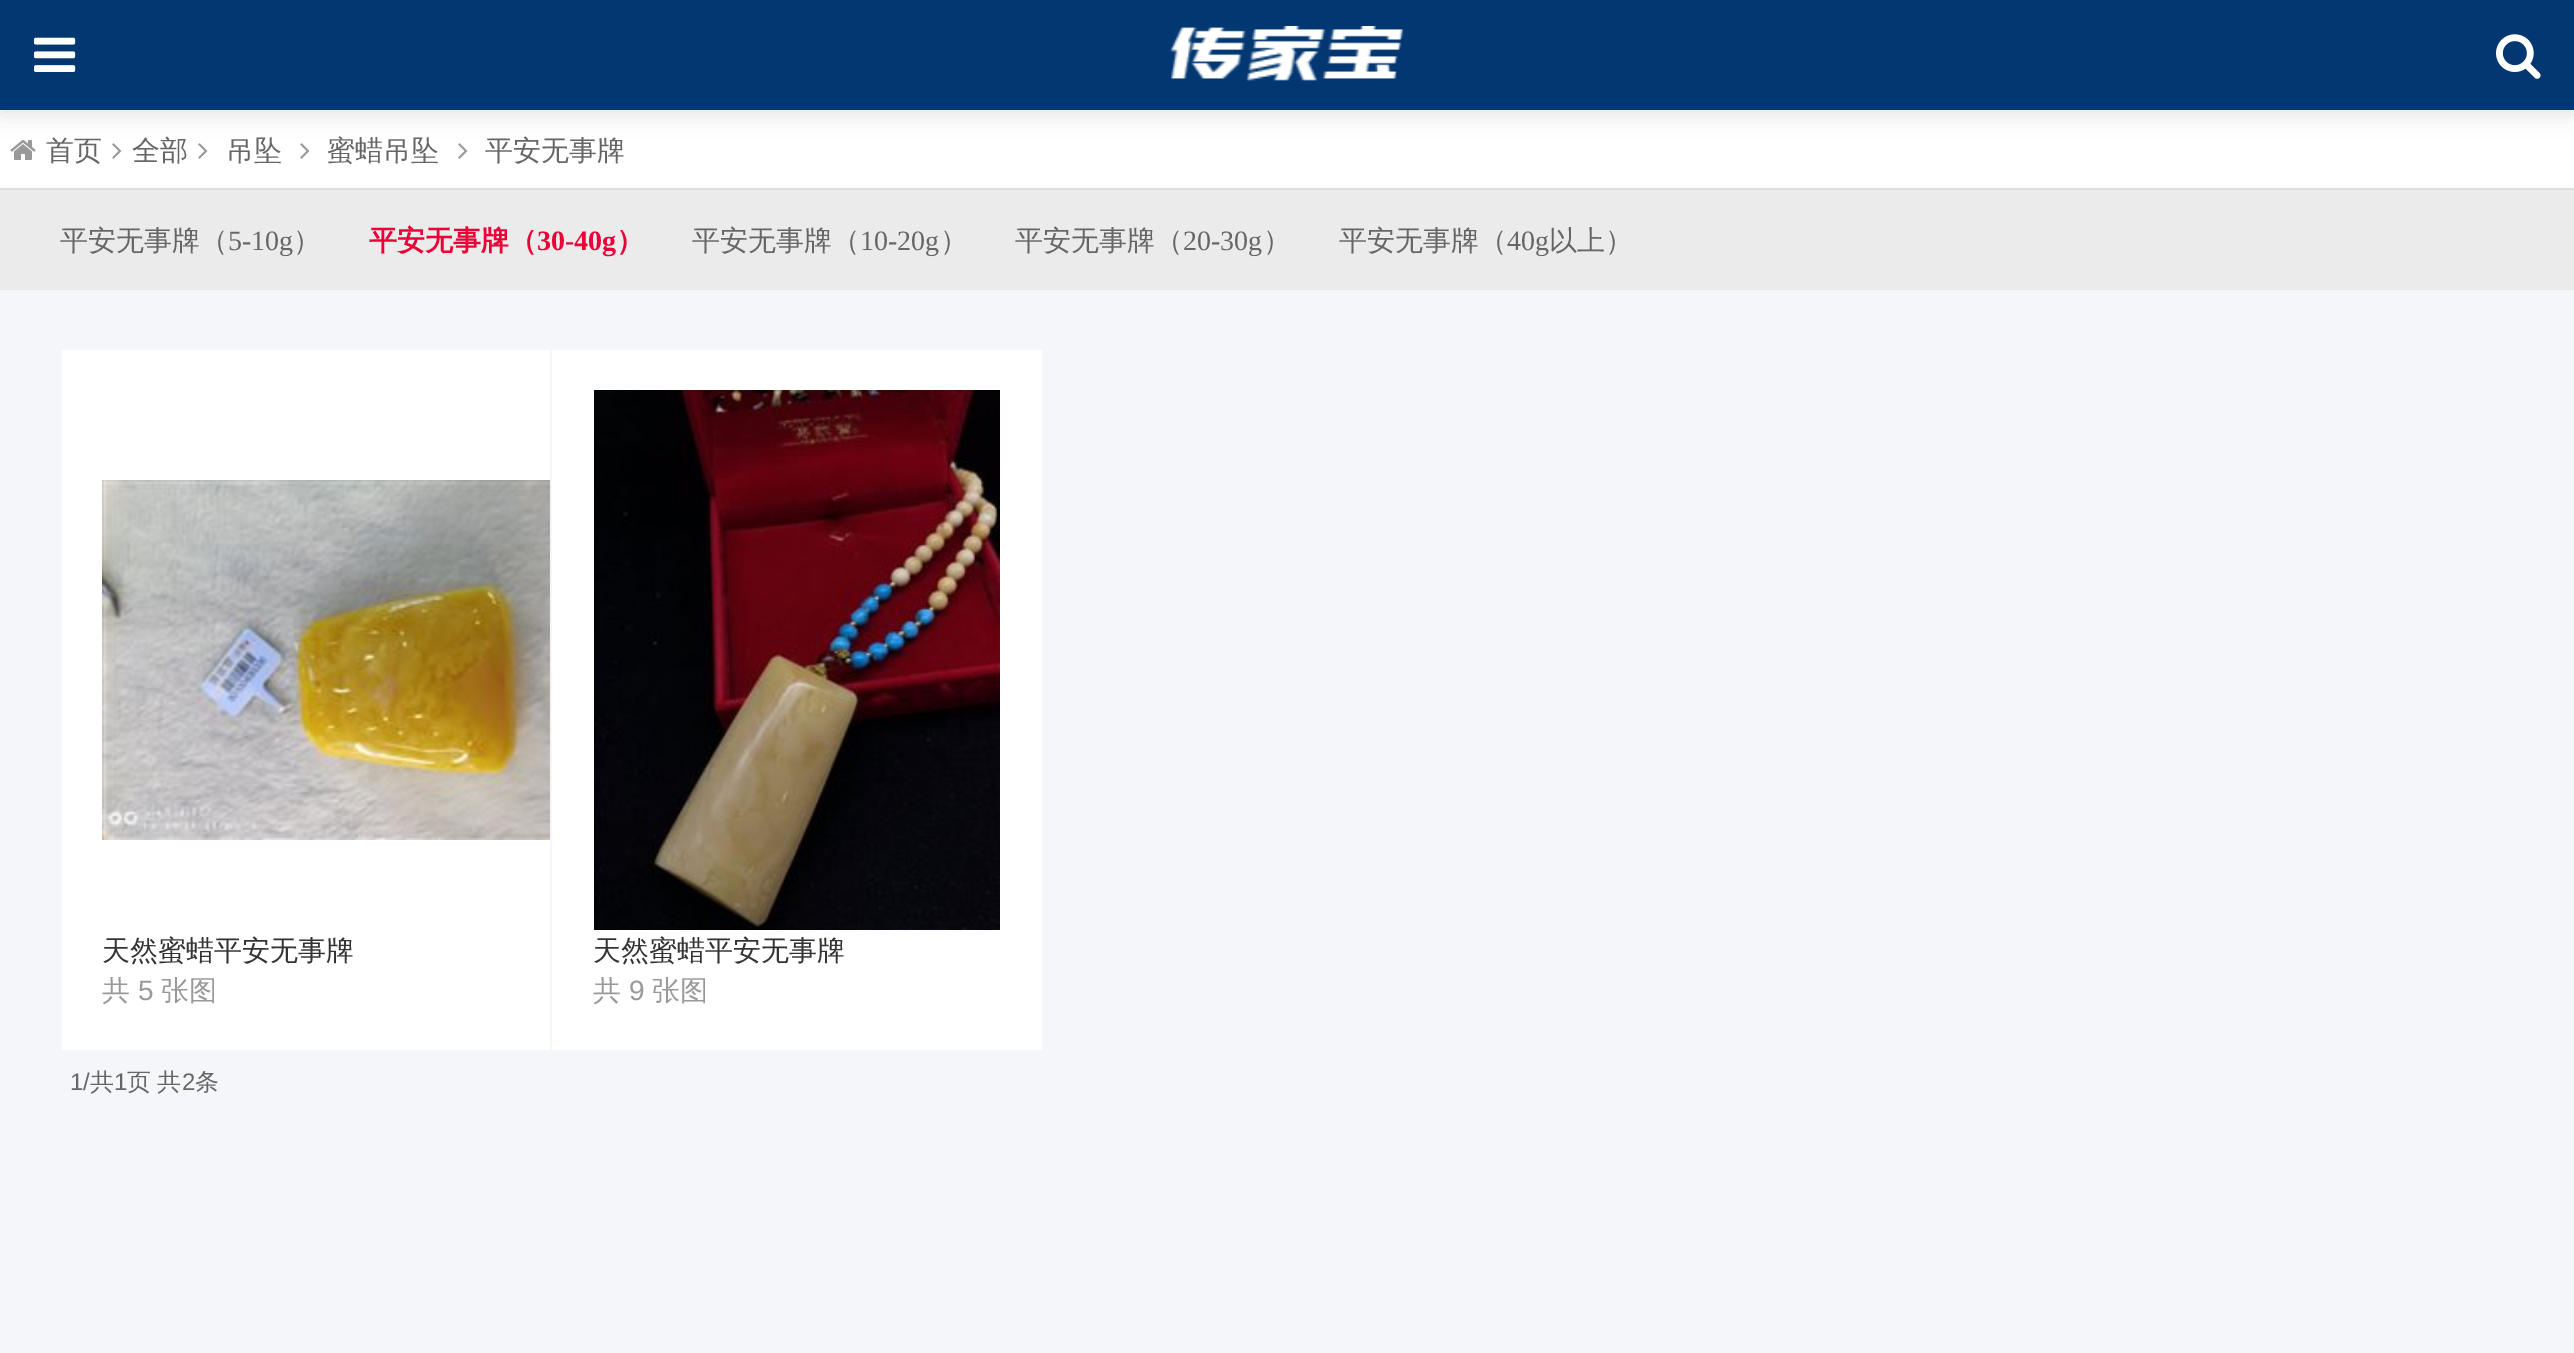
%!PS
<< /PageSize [2574 1353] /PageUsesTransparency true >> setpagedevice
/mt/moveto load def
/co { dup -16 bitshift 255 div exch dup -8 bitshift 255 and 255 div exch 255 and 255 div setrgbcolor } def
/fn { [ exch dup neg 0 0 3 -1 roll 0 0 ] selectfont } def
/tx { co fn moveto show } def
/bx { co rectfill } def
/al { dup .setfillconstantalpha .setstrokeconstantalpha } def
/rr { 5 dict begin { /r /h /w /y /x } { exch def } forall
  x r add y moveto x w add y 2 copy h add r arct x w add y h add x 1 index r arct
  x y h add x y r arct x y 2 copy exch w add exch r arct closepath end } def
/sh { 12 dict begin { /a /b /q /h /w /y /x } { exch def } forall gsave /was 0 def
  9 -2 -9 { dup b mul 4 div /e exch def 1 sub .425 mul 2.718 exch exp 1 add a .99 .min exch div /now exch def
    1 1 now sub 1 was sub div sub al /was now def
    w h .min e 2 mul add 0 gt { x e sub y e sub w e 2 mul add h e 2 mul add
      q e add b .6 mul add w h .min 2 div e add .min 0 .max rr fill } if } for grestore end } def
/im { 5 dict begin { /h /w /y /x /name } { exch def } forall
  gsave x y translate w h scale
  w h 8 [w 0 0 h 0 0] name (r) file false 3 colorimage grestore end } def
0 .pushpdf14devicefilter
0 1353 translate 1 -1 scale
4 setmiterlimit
0 0 2574 1353 16#F5F6FA bx
0 110 2574 78 16#FFFFFF bx
(media/4.raw) 10 140 26 20 im
(media/5.raw) 112 143 10 16 im
(media/5.raw) 198 143 10 16 im
(media/5.raw) 300 143 10 16 im
(media/5.raw) 458 143 10 16 im
16#000000 co
0 6 2574 110 0 10 .1 sh
0 0 2574 110 16#033771 bx
(media/1.raw) 34 37 42 35 im
(media/2.raw) 1169 26 234 55 im
(media/3.raw) 2496 34 45 45 im
0 188 2574 2 16#DDDDDD bx
0 190 2574 100 16#EBEBEB bx
62 350 488 700 16#FFFFFF bx
(media/6.raw) 102 480 448 360 im
552 350 490 700 16#FFFFFF bx
(media/7.raw) 594 390 406 540 im
(首页) 46 160 /WenQuanYiZenHei-Medium 28 16#666666 tx
(全部) 132 160 /WenQuanYiZenHei-Medium 28 16#666666 tx
(吊坠) 226 160 /WenQuanYiZenHei-Medium 28 16#666666 tx
(蜜蜡吊坠) 327 160 /WenQuanYiZenHei-Medium 28 16#666666 tx
(平安无事牌) 485 160 /WenQuanYiZenHei-Medium 28 16#666666 tx
(平安无事牌（) 60 250 /WenQuanYiZenHei-Medium 28 16#666666 tx
(5-10g) 228 250 /LiberationSerif-Regular 28 16#666666 tx
(）) 293 250 /WenQuanYiZenHei-Medium 28 16#666666 tx
(平安无事牌（) 369 250 /WenQuanYiZenHei-Bold 28 16#EA0037 tx
(30-40g) 537 250 /LiberationSerif-Bold 28 16#EA0037 tx
(）) 616 250 /WenQuanYiZenHei-Bold 28 16#EA0037 tx
(平安无事牌（) 692 250 /WenQuanYiZenHei-Medium 28 16#666666 tx
(10-20g) 860 250 /LiberationSerif-Regular 28 16#666666 tx
(）) 940 250 /WenQuanYiZenHei-Medium 28 16#666666 tx
(平安无事牌（) 1015 250 /WenQuanYiZenHei-Medium 28 16#666666 tx
(20-30g) 1183 250 /LiberationSerif-Regular 28 16#666666 tx
(）) 1263 250 /WenQuanYiZenHei-Medium 28 16#666666 tx
(平安无事牌（) 1339 250 /WenQuanYiZenHei-Medium 28 16#666666 tx
(40g) 1507 250 /LiberationSerif-Regular 28 16#666666 tx
(以上）) 1549 250 /WenQuanYiZenHei-Medium 28 16#666666 tx
(天然蜜蜡平安无事牌) 102 960 /WenQuanYiZenHei-Medium 28 16#333333 tx
(共) 102 1000 /WenQuanYiZenHei-Medium 28 16#999999 tx
(5) 138 1000 /LiberationSans-Regular 28 16#999999 tx
(张图) 161 1000 /WenQuanYiZenHei-Medium 28 16#999999 tx
(天然蜜蜡平安无事牌) 593 960 /WenQuanYiZenHei-Medium 28 16#333333 tx
(共) 593 1000 /WenQuanYiZenHei-Medium 28 16#999999 tx
(9) 629 1000 /LiberationSans-Regular 28 16#999999 tx
(张图) 652 1000 /WenQuanYiZenHei-Medium 28 16#999999 tx
(1/) 70 1090 /LiberationSans-Regular 24 16#666666 tx
(共) 90 1090 /WenQuanYiZenHei-Medium 24 16#666666 tx
(1) 114 1090 /LiberationSans-Regular 24 16#666666 tx
/WenQuanYiZenHei-Medium 24 fn
127 1090 mt -1 0 32 (页 共) widthshow
(2) 182 1090 /LiberationSans-Regular 24 16#666666 tx
(条) 195 1090 /WenQuanYiZenHei-Medium 24 16#666666 tx
.poppdf14devicefilter showpage
